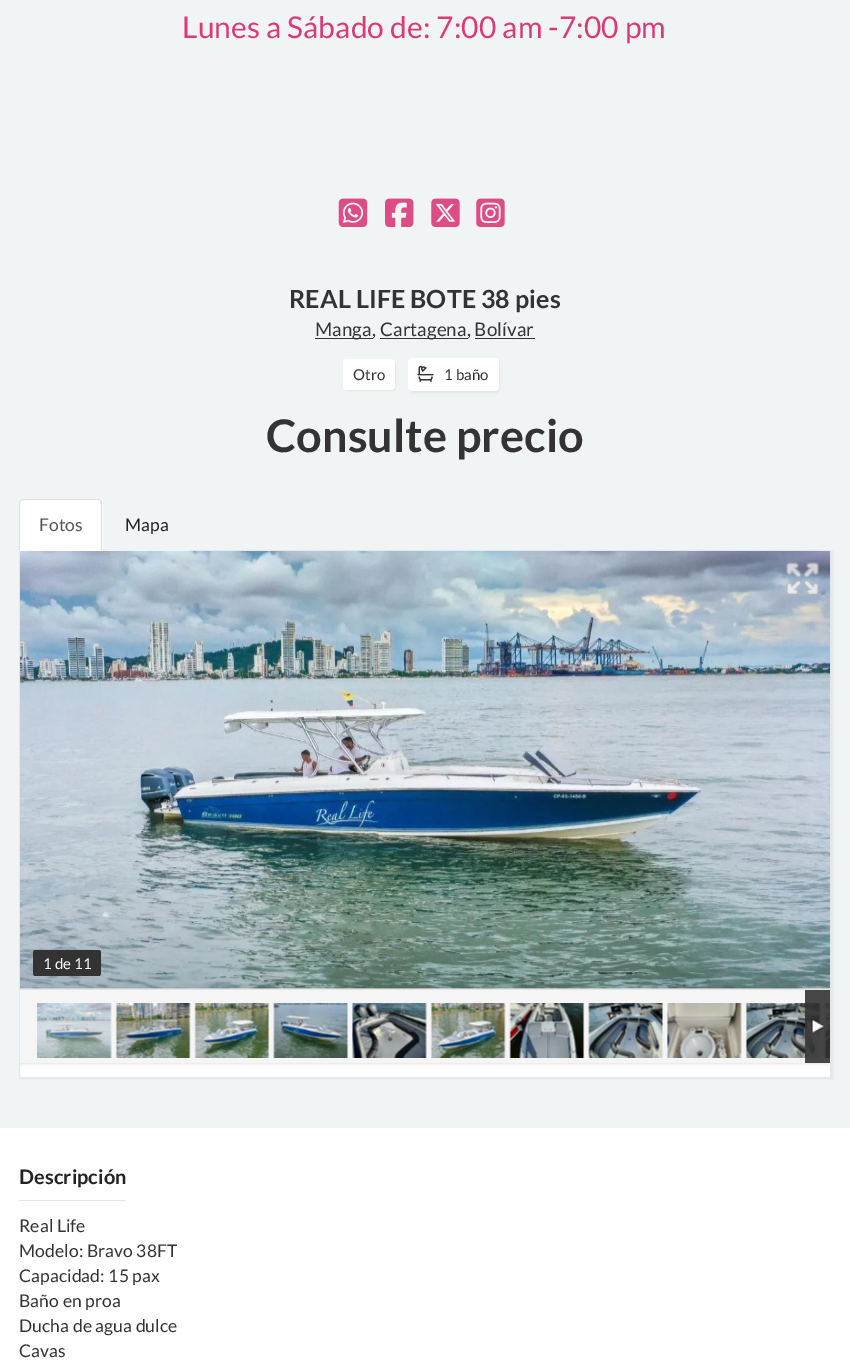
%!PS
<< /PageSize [850 1365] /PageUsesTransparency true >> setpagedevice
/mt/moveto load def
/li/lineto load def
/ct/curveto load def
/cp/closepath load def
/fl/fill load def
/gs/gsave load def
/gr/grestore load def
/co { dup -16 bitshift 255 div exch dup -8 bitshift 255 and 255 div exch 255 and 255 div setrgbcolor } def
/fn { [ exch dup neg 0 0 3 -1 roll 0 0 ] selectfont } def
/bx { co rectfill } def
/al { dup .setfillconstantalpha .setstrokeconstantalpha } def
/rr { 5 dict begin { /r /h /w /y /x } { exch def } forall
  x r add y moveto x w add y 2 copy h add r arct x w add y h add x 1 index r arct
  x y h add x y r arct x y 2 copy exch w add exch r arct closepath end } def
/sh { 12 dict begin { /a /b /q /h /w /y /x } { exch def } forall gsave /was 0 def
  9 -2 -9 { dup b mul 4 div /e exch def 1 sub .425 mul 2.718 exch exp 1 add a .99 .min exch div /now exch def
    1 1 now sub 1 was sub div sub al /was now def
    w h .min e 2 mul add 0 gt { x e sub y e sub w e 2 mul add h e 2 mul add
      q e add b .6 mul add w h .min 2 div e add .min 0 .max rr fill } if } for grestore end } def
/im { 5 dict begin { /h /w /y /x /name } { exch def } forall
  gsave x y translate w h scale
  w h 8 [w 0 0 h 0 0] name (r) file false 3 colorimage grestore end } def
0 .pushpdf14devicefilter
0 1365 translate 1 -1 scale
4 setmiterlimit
0 0 850 1365 16#F1F4F5 bx
(media/1.raw) 338 198 30 29 im
(media/2.raw) 385 198 29 29 im
(media/3.raw) 431 198 29 29 im
(media/4.raw) 476 198 29 29 im
315 338 58 1 16#333333 bx
380 338 88 1 16#333333 bx
475 338 60 1 16#333333 bx
16#000000 co
344 360 52 31 4 1 .05 sh
16#FFFFFF co
343 359 52 31 4 rr fl
16#000000 co
409 359 91 34 4 1 .05 sh
16#FFFFFF co
408 358 91 33 4 rr fl
(media/5.raw) 417 365 17 17 im
16#000000 co
20 551 813 528 0 1 .05 sh
20 988 810 89 16#FFFFFF bx
16#E4E8EB co
19.5 550.5 811 527 rectstroke
16#FFFFFF co
24 499 mt 98 499 li 101 499 103 501 103 504 ct 103 551 li 19 551 li 19 504 li 19 501 21 499 24 499 ct cp fl
16#DDDDDD co
24 499 mt 22 499 21 500 20 500 ct 21 501 li 22 500 23 500 24 500 ct 98 500 li 99 500 100 500 100 501 ct 101 500 li 100 500 99 499 98 499 ct cp fl
102 551 mt 102 504 li 102 503 102 501 101 500 ct 100 501 li 101 504 li 101 550 li cp fl
20 500 mt 20 501 19 502 19 504 ct 19 551 li 20 550 li 20 504 li 20 503 20 502 21 501 ct cp fl
16#F1F4F5 co
110 499 mt 185 499 li 188 499 190 501 190 504 ct 190 551 li 105 551 li 105 504 li 105 501 107 499 110 499 ct cp fl
(media/6.raw) 20 551 810 438 im
(media/7.raw) 786 562 33 33 im
16#333333 co
33 950 68 26 2.5 rr fl
gs
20 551 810 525 rectclip
16#000000 co
20 989 810 74 0 2.5 .15 sh
gr
20 990 810 73 16#F5F5F5 bx
20 989 810 1 16#E5E5E5 bx
(media/18.raw) 745 1003 76 55 im
(media/19.raw) 824 1003 6 55 im
0.9 al
805 990 25 73 16#333333 bx
1 al
(media/8.raw) 811 1019 14 15 im
(media/9.raw) 37 1003 75 55 im
(media/10.raw) 115 1003 76 55 im
(media/11.raw) 194 1003 76 55 im
(media/12.raw) 273 1003 75 55 im
(media/13.raw) 352 1003 75 55 im
(media/14.raw) 430 1003 76 55 im
(media/15.raw) 509 1003 76 55 im
(media/16.raw) 588 1003 75 55 im
(media/17.raw) 667 1003 75 55 im
0 1128 850 237 16#FFFFFF bx
19 1200 107 1 16#E6E6E6 bx
/Lato-Regular 30 fn
16#DB3A78 co
182 38 mt .1 0 (Lunes a Sábado de: 7:00 am -7:00 pm) ashow
/Lato-Bold 25 fn
16#333333 co
289 308 mt .1 0 (REAL LIFE BOTE 38 pies) ashow
/Lato-Regular 18.75 fn
315 336 mt .1 0 (Manga,) ashow
380 336 mt .1 0 (Cartagena, Bolívar) ashow
/Lato-Regular 15 fn
353 380 mt .1 0 (Otro) ashow
444 380 mt .1 0 (1 baño) ashow
/Lato-Bold 45 fn
266 452 mt .1 0 (Consulte precio) ashow
/Lato-Regular 17.5 fn
16#555555 co
39 531 mt .1 0 (Fotos) ashow
16#222222 co
125 531 mt .1 0 (Mapa) ashow
/Lato-Regular 15 fn
16#FFFFFF co
43 969 mt .1 0 (1 de 11) ashow
/Lato-Bold 20 fn
16#222222 co
19 1184 mt .1 0 (Descripción) ashow
/Lato-Regular 17.5 fn
16#333333 co
19 1232 mt .1 0 (Real Life) ashow
19 1257 mt .1 0 (Modelo: Bravo 38FT) ashow
19 1282 mt .1 0 (Capacidad: 15 pax) ashow
19 1307 mt .1 0 (Baño en proa) ashow
19 1332 mt .1 0 (Ducha de agua dulce) ashow
19 1357 mt .1 0 (Cavas) ashow
.poppdf14devicefilter showpage
